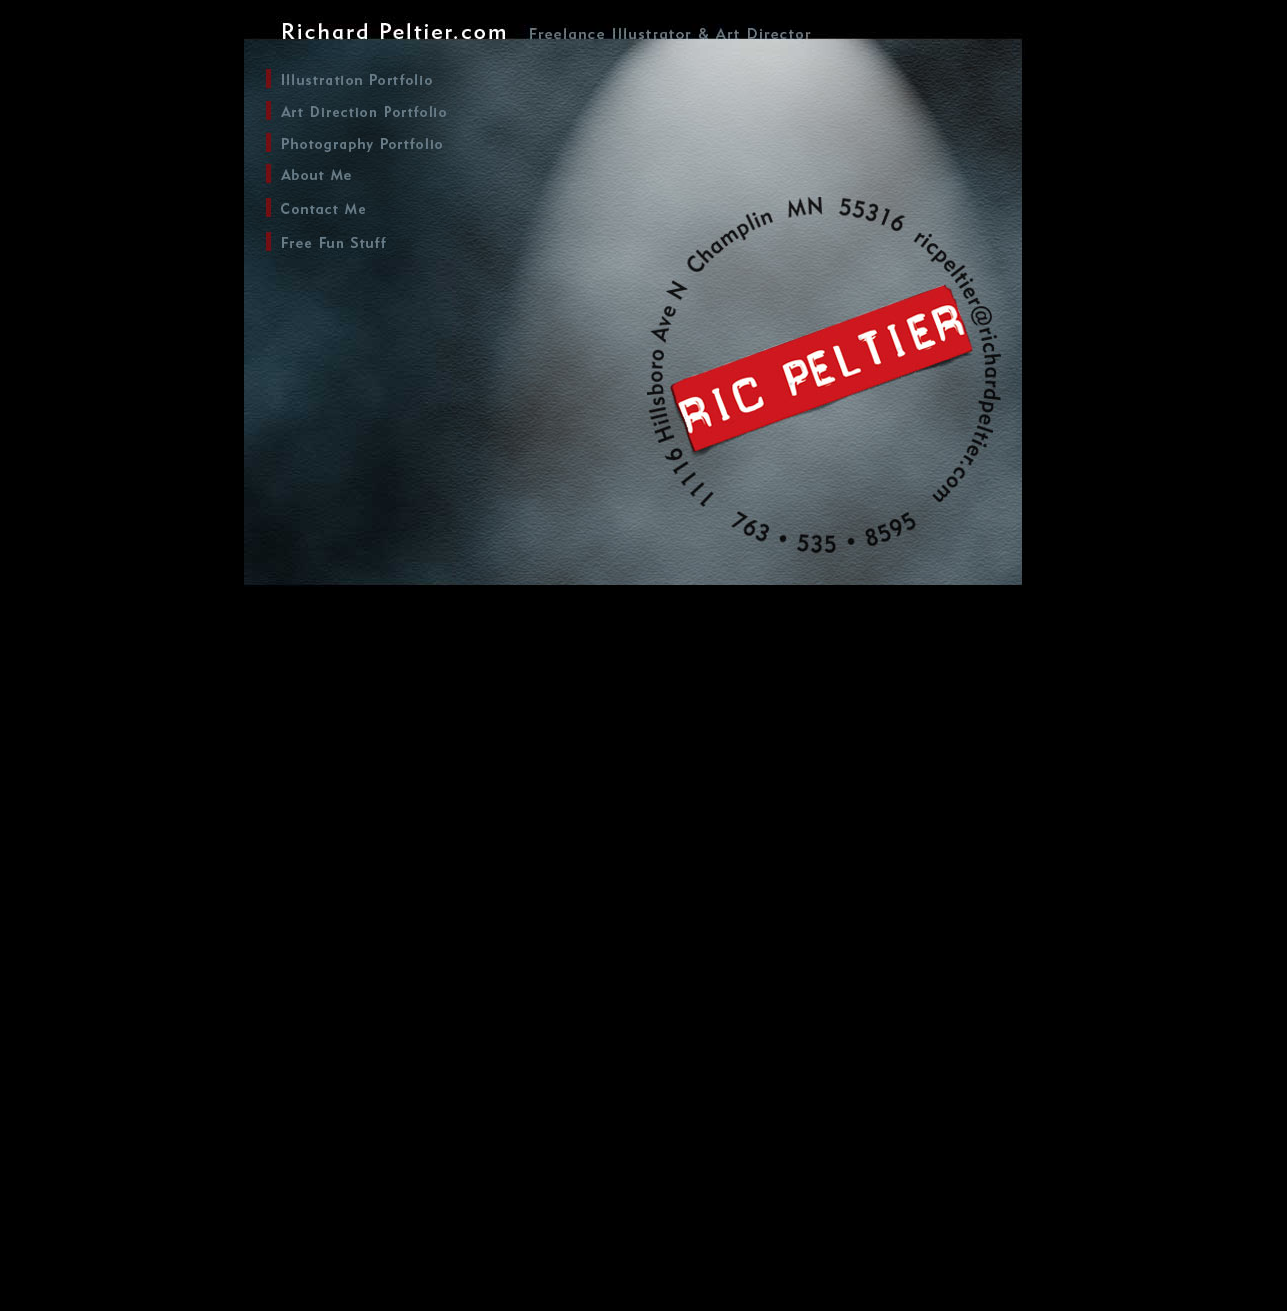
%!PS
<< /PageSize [1287 1311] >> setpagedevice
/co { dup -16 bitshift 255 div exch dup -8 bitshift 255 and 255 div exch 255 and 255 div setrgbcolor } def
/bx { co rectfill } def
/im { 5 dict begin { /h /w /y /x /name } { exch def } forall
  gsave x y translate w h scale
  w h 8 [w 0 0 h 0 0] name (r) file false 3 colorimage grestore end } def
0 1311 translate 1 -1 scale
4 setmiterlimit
0 0 1287 1311 16#000000 bx
(media/1.raw) 244 16 784 43 im
(media/2.raw) 244 59 212 34 im
(media/3.raw) 244 93 212 33 im
(media/4.raw) 244 126 212 31 im
(media/5.raw) 244 157 212 33 im
(media/6.raw) 244 190 212 33 im
(media/7.raw) 244 223 212 36 im
(media/8.raw) 456 59 568 528 im
(media/9.raw) 244 259 212 328 im
showpage
